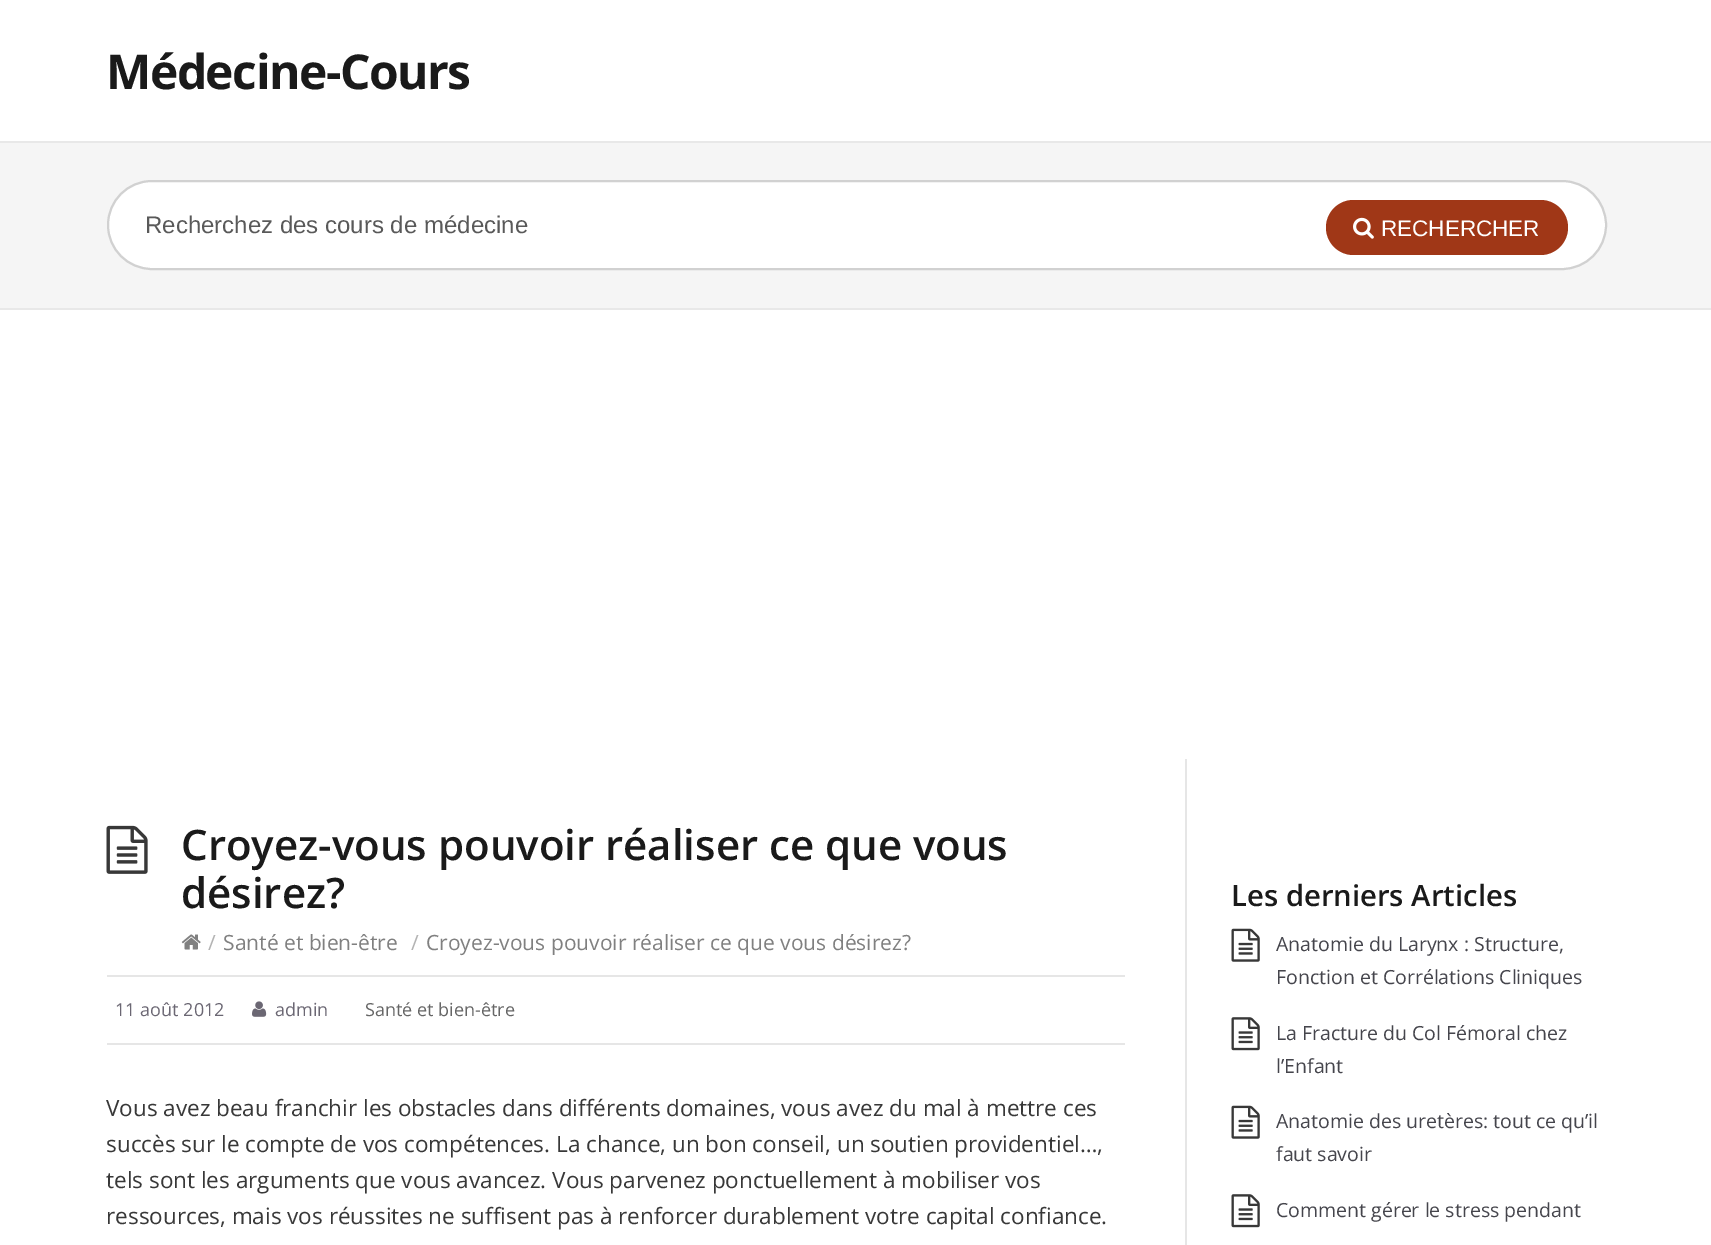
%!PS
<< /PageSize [1711 1245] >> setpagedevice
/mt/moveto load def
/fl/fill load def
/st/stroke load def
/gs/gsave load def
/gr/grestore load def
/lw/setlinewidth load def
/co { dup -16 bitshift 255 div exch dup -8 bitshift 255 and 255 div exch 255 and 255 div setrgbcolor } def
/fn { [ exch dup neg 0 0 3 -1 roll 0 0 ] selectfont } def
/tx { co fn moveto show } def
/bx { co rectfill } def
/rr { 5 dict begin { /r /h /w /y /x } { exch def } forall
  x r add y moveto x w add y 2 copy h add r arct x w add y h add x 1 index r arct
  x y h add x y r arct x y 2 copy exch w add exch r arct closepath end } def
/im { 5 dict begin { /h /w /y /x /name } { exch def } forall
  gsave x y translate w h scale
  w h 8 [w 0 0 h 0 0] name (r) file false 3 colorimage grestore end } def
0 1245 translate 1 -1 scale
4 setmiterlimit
0 0 1711 1245 16#FFFFFF bx
0 143 1711 165 16#F5F5F5 bx
0 141 1711 2 16#E8E8E8 bx
0 308 1711 2 16#E8E8E8 bx
16#FFFFFF co
108 181 1498 88 44 rr gs fl gr
16#D1D1D1 co
2 lw
st
16#A03717 co
1326 200 242 55 27.5 rr fl
(media/1.raw) 1353 217 21 22 im
1185 759 2 486 16#E6E6E6 bx
107 975 1018 2 16#E6E6E6 bx
(media/2.raw) 106 825 42 49 im
(media/3.raw) 181 934 20 16 im
107 1043 1018 2 16#E6E6E6 bx
(media/4.raw) 252 1001 15 16 im
(media/5.raw) 1231 928 29 34 im
(media/6.raw) 1231 1017 29 34 im
(media/5.raw) 1231 1105 29 34 im
(media/6.raw) 1231 1194 29 34 im
/OpenSans-Bold 48 fn
16#1A1A1A co
106 89 mt -1.5 0 (Médecine-Cours) ashow
(Recherchez des cours de médecine) 145 233 /LiberationSans-Regular 24 16#595959 tx
(RECHERCHER) 1381 236 /LiberationSans-Regular 22.5 16#FFFFFF tx
(Croyez-vous pouvoir réaliser ce que vous) 181 860 /OpenSans-SemiBold 42 16#1A1A1A tx
(désirez?) 181 908 /OpenSans-SemiBold 42 16#1A1A1A tx
(/) 208 950 /OpenSans-Regular 21 16#B3B3B3 tx
(Santé et bien-être) 223 950 /OpenSans-Regular 21 16#808080 tx
(/) 411 950 /OpenSans-Regular 21 16#B3B3B3 tx
(Croyez-vous pouvoir réaliser ce que vous désirez?) 426 950 /OpenSans-Regular 21 16#808080 tx
(11 août 2012) 115 1016 /OpenSans-Regular 18 16#6B6773 tx
(admin) 275 1016 /OpenSans-Regular 18 16#6B6773 tx
(Santé et bien-être) 365 1016 /OpenSans-Regular 18 16#666666 tx
(Vous avez beau franchir les obstacles dans différents domaines, vous avez du mal à mettre ces) 106 1116 /OpenSans-Regular 22.5 16#383838 tx
(succès sur le compte de vos compétences. La chance, un bon conseil, un soutien providentiel…,) 106 1152 /OpenSans-Regular 22.5 16#383838 tx
(tels sont les arguments que vous avancez. Vous parvenez ponctuellement à mobiliser vos) 106 1188 /OpenSans-Regular 22.5 16#383838 tx
(ressources, mais vos réussites ne suffisent pas à renforcer durablement votre capital confiance.) 106 1224 /OpenSans-Regular 22.5 16#383838 tx
(Les derniers Articles) 1231 906 /OpenSans-SemiBold 29.25 16#1A1A1A tx
(Anatomie du Larynx : Structure,) 1276 951 /OpenSans-Regular 19.5 16#45454C tx
(Fonction et Corrélations Cliniques) 1276 984 /OpenSans-Regular 19.5 16#45454C tx
(La Fracture du Col Fémoral chez) 1276 1040 /OpenSans-Regular 19.5 16#45454C tx
(l’Enfant) 1276 1073 /OpenSans-Regular 19.5 16#45454C tx
(Anatomie des uretères: tout ce qu’il) 1276 1128 /OpenSans-Regular 19.5 16#45454C tx
(faut savoir) 1276 1161 /OpenSans-Regular 19.5 16#45454C tx
(Comment gérer le stress pendant) 1276 1217 /OpenSans-Regular 19.5 16#45454C tx
showpage
